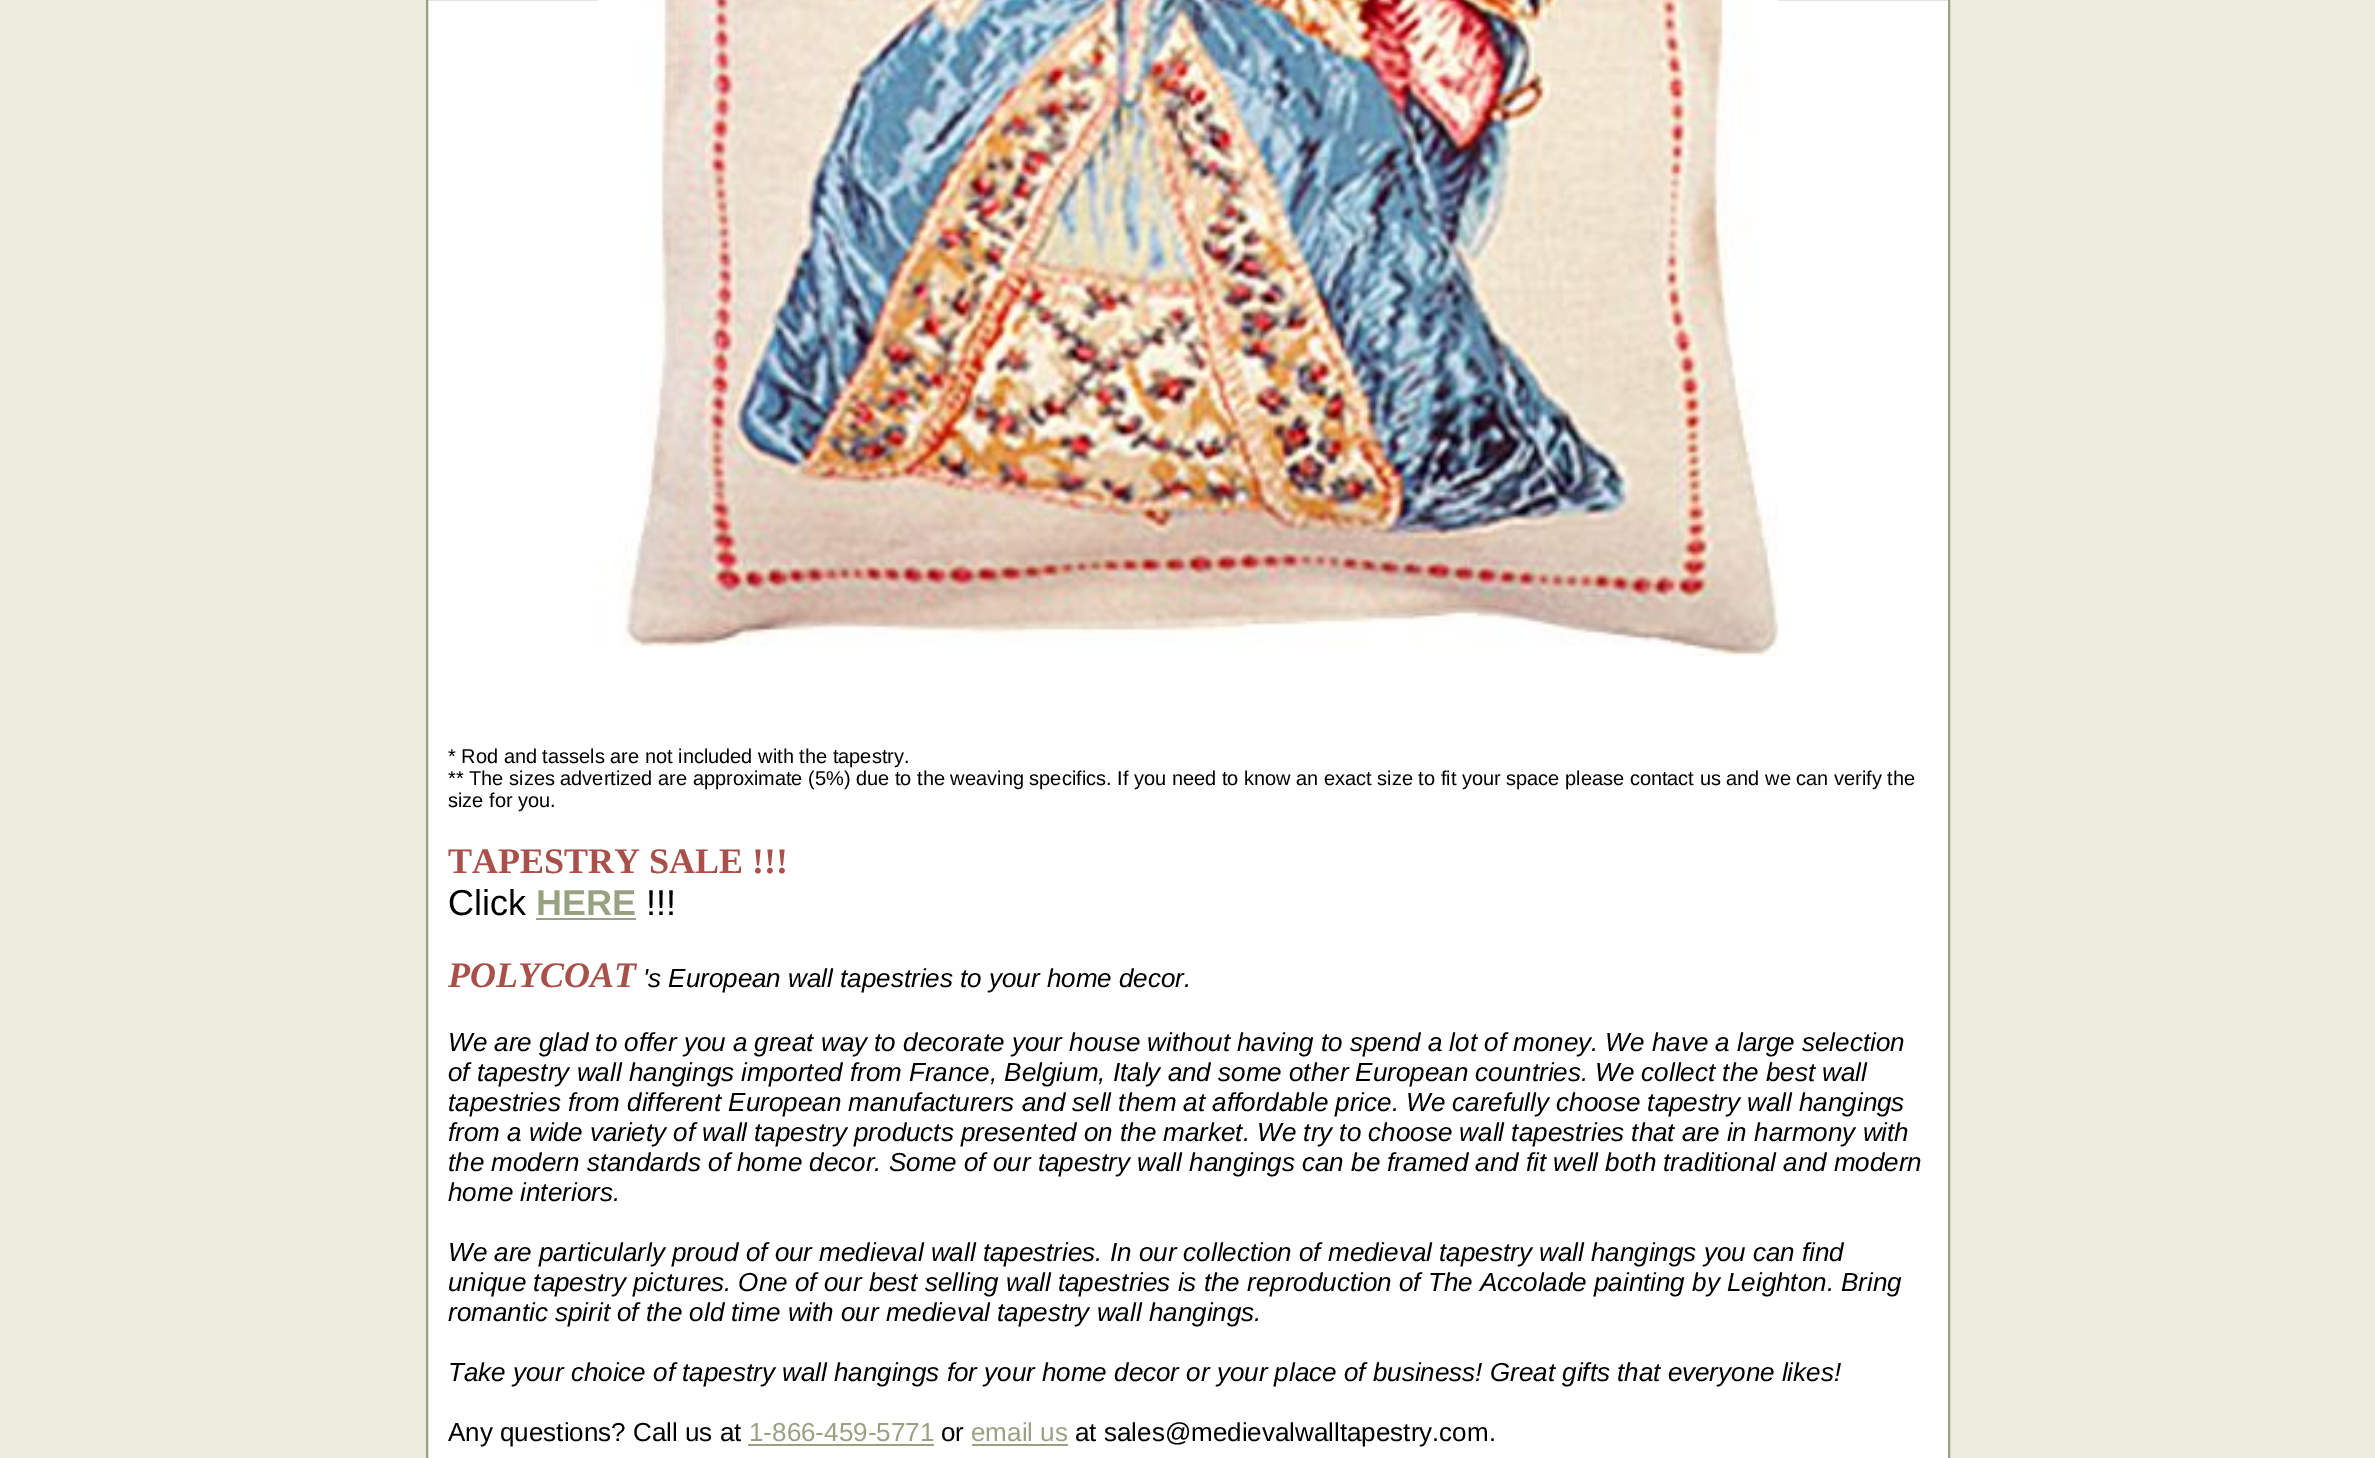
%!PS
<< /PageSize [2375 1458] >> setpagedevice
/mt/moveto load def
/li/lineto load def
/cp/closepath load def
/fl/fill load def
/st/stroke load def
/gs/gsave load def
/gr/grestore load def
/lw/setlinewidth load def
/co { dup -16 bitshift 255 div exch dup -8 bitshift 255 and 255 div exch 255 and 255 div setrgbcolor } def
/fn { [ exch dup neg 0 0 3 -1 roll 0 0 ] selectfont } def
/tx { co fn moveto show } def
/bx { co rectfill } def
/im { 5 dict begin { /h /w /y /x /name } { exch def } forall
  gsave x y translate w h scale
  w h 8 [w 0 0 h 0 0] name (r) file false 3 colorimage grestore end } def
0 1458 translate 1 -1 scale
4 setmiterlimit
0 0 2375 1458 16#ECEDDC bx
16#FFFFFF co
427 -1 mt 1949 -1 li 1949 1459 li 427 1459 li cp gs fl gr
16#98A280 co
2 lw
st
(media/1.raw) 598 0 1180 656 im
536 918 100 2 16#98A280 bx
748 1444 186 2 16#98A280 bx
972 1444 96 2 16#98A280 bx
(* Rod and tassels are not included with the tapestry.) 448 763 /LiberationSans-Regular 20 16#000000 tx
(** The sizes advertized are approximate \(5%\) due to the weaving specifics. If you need to know an exact size to fit your space please contact us and we can verify the) 448 785 /LiberationSans-Regular 20 16#000000 tx
(size for you.) 448 807 /LiberationSans-Regular 20 16#000000 tx
(TAPESTRY SALE !!!) 448 873 /LiberationSerif-Bold 36 16#AA504A tx
(Click) 448 915 /LiberationSans-Regular 36 16#000000 tx
(HERE) 536 915 /LiberationSans-Bold 36 16#98A280 tx
(!!!) 646 915 /LiberationSans-Regular 36 16#000000 tx
(POLYCOAT) 448 987 /LiberationSerif-BoldItalic 36 16#AA504A tx
('s European wall tapestries to your home decor.) 643 987 /LiberationSans-Italic 26 16#000000 tx
(We are glad to offer you a great way to decorate your house without having to spend a lot of money. We have a large selection) 448 1051 /LiberationSans-Italic 26 16#000000 tx
(of tapestry wall hangings imported from France, Belgium, Italy and some other European countries. We collect the best wall) 448 1081 /LiberationSans-Italic 26 16#000000 tx
(tapestries from different European manufacturers and sell them at affordable price. We carefully choose tapestry wall hangings) 448 1111 /LiberationSans-Italic 26 16#000000 tx
(from a wide variety of wall tapestry products presented on the market. We try to choose wall tapestries that are in harmony with) 448 1141 /LiberationSans-Italic 26 16#000000 tx
(the modern standards of home decor. Some of our tapestry wall hangings can be framed and fit well both traditional and modern) 448 1171 /LiberationSans-Italic 26 16#000000 tx
(home interiors.) 448 1201 /LiberationSans-Italic 26 16#000000 tx
(We are particularly proud of our medieval wall tapestries. In our collection of medieval tapestry wall hangings you can find) 448 1261 /LiberationSans-Italic 26 16#000000 tx
(unique tapestry pictures. One of our best selling wall tapestries is the reproduction of The Accolade painting by Leighton. Bring) 448 1291 /LiberationSans-Italic 26 16#000000 tx
(romantic spirit of the old time with our medieval tapestry wall hangings.) 448 1321 /LiberationSans-Italic 26 16#000000 tx
(Take your choice of tapestry wall hangings for your home decor or your place of business! Great gifts that everyone likes!) 448 1381 /LiberationSans-Italic 26 16#000000 tx
(Any questions? Call us at) 448 1441 /LiberationSans-Regular 26 16#000000 tx
(1-866-459-5771) 749 1441 /LiberationSans-Regular 26 16#98A280 tx
(or) 941 1441 /LiberationSans-Regular 26 16#000000 tx
(email us) 971 1441 /LiberationSans-Regular 26 16#98A280 tx
(at sales@medievalwalltapestry.com.) 1075 1441 /LiberationSans-Regular 26 16#000000 tx
showpage
